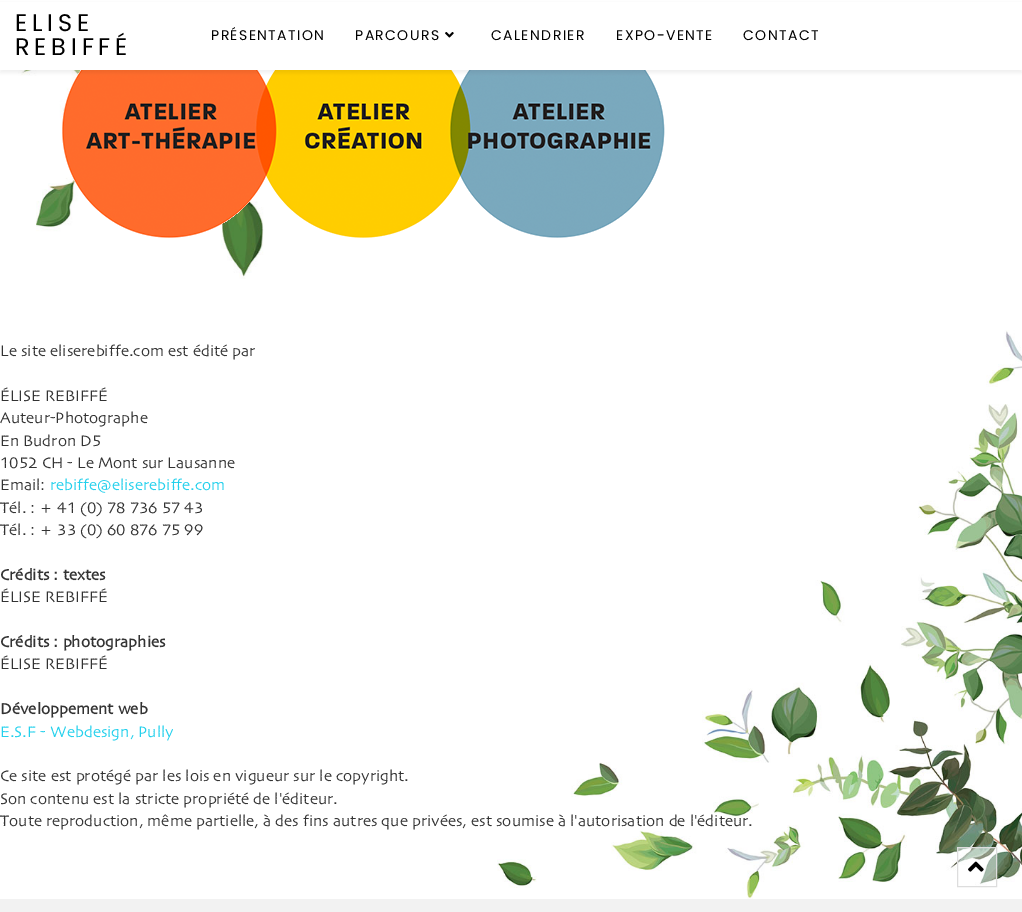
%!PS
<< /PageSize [1022 912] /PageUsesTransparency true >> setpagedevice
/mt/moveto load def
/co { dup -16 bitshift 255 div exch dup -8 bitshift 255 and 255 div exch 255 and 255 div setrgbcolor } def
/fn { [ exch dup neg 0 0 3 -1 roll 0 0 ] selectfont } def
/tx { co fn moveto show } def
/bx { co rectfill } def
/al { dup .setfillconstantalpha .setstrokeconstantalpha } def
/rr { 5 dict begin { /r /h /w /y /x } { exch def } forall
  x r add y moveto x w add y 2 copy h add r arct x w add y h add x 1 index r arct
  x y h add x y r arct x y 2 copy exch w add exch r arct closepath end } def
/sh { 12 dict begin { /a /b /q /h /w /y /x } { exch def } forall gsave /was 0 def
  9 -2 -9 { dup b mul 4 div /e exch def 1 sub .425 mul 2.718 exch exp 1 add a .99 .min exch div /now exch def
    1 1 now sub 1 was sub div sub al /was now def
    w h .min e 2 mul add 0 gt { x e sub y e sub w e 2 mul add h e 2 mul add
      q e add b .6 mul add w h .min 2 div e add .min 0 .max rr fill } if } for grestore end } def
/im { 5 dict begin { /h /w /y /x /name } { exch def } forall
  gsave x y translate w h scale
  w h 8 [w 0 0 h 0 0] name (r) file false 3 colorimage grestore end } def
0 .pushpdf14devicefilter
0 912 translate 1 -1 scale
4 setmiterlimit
0 0 1022 912 16#FFFFFF bx
(media/2.raw) 6 70 407 209 im
(media/3.raw) 62 70 603 168 im
16#000000 co
0 3 1022 70 0 1.5 .05 sh
0 2 1022 68 16#FFFFFF bx
(media/1.raw) 445 32 9 6 im
(media/4.raw) 497 330 525 569 im
0 899 1022 13 16#F2F2F2 bx
0.4 al
958 848 38 36 16#FFFFFF bx
1 al
16#DDDDDD co
957.5 847.5 39 39 rectstroke
(media/5.raw) 968 861 16 11 im
/Poppins-Regular 24 fn
16#000000 co
15 31 mt 4.75 0 (ELISE) ashow
15 55 mt 4.75 0 (REBIFFÉ) ashow
/Poppins-Regular 14 fn
211 40 mt 1.4 0 (PRÉSENTATION) ashow
355 40 mt 1.4 0 (PARCOURS) ashow
491 40 mt 1.4 0 (CALENDRIER) ashow
616 40 mt 1.4 0 (EXPO-VENTE) ashow
743 40 mt 1.4 0 (CONTACT) ashow
(Le site eliserebiffe.com est édité par) 0 356 /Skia-Regular 16 16#333333 tx
(ÉLISE REBIFFÉ) 0 401 /Skia-Regular 16 16#333333 tx
(Auteur-Photographe) 0 423 /Skia-Regular 16 16#333333 tx
(En Budron D5) 0 446 /Skia-Regular 16 16#333333 tx
(1052 CH - Le Mont sur Lausanne) 0 468 /Skia-Regular 16 16#333333 tx
(Email:) 0 490 /Skia-Regular 16 16#333333 tx
(rebiffe@eliserebiffe.com) 50 490 /Skia-Regular 16 16#23D0EC tx
(Tél. : + 41 \(0\) 78 736 57 43) 0 513 /Skia-Regular 16 16#333333 tx
(Tél. : + 33 \(0\) 60 876 75 99) 0 535 /Skia-Regular 16 16#333333 tx
(Crédits : textes) 0 580 /Skia-Bold 16 16#333333 tx
(ÉLISE REBIFFÉ) 0 602 /Skia-Regular 16 16#333333 tx
(Crédits : photographies) 0 647 /Skia-Bold 16 16#333333 tx
(ÉLISE REBIFFÉ) 0 669 /Skia-Regular 16 16#333333 tx
(Développement web) 0 714 /Skia-Bold 16 16#333333 tx
(E.S.F - Webdesign, Pully) 0 737 /Skia-Regular 16 16#23D0EC tx
(Ce site est protégé par les lois en vigueur sur le copyright.) 0 781 /Skia-Regular 16 16#333333 tx
(Son contenu est la stricte propriété de l'éditeur.) 0 804 /Skia-Regular 16 16#333333 tx
(Toute reproduction, même partielle, à des fins autres que privées, est soumise à l'autorisation de l'éditeur.) 0 826 /Skia-Regular 16 16#333333 tx
.poppdf14devicefilter showpage
